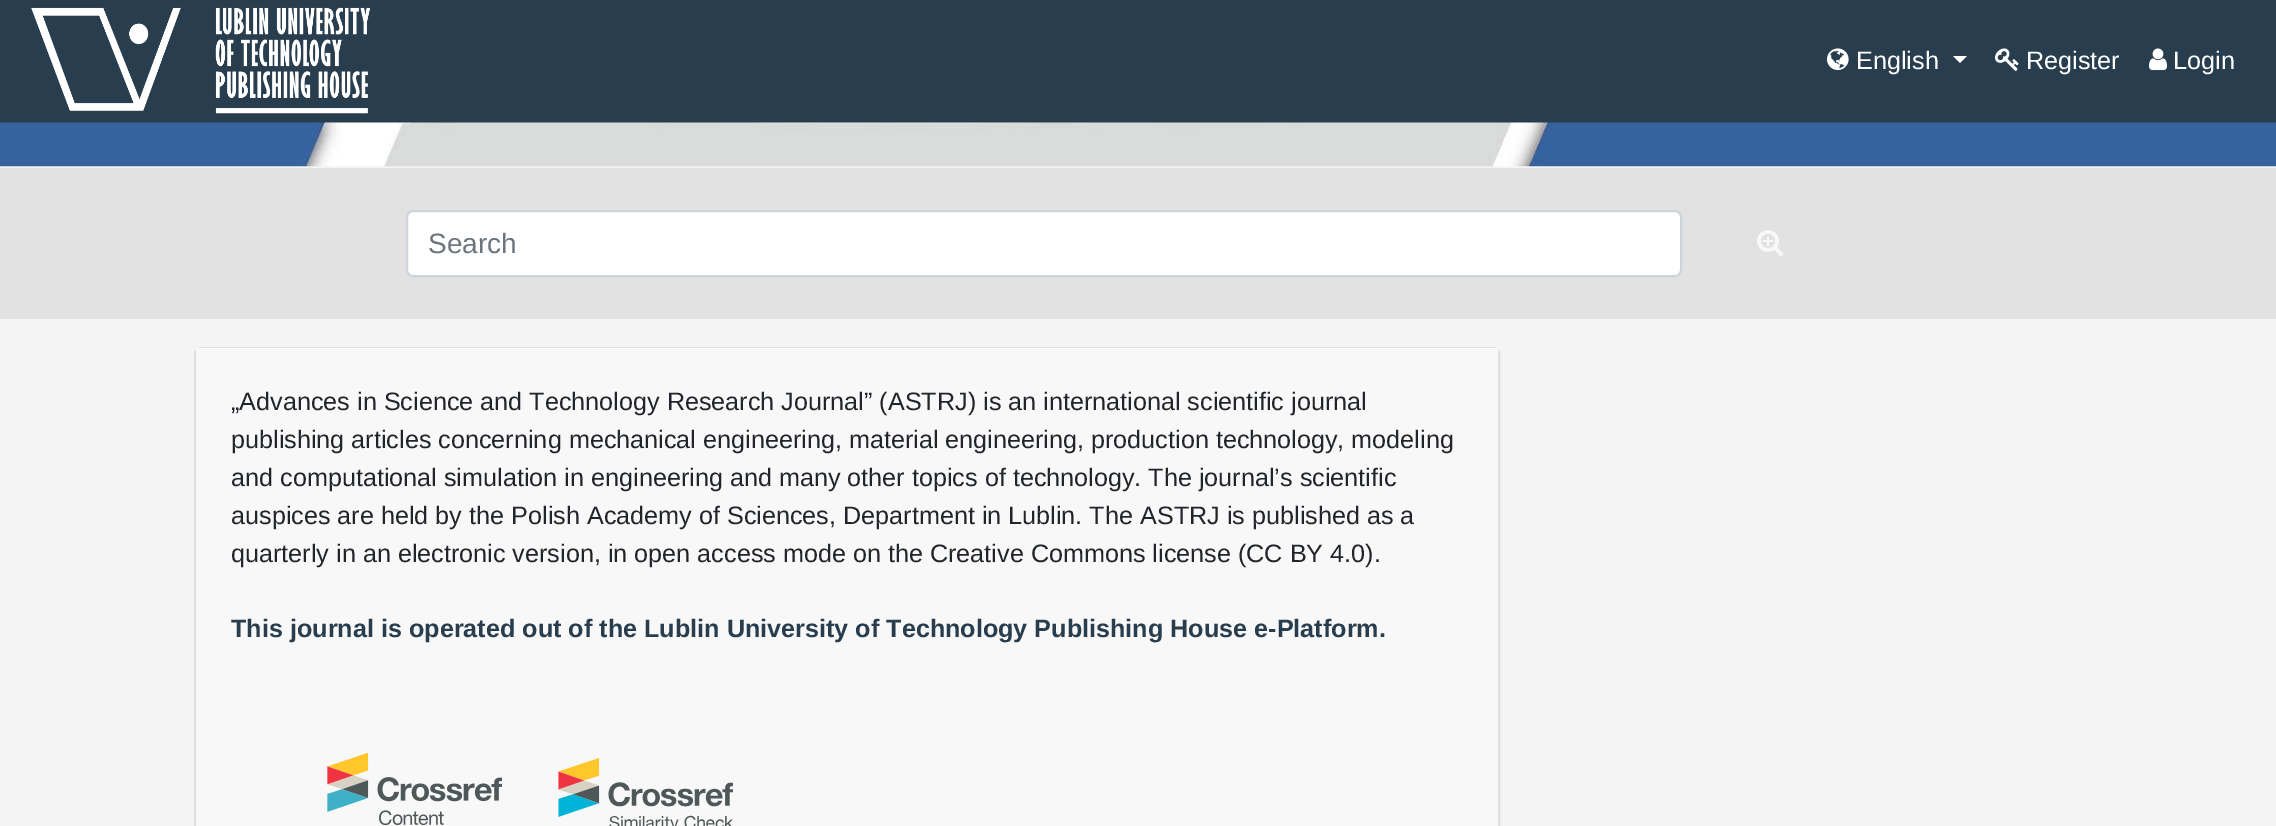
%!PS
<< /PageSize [2276 826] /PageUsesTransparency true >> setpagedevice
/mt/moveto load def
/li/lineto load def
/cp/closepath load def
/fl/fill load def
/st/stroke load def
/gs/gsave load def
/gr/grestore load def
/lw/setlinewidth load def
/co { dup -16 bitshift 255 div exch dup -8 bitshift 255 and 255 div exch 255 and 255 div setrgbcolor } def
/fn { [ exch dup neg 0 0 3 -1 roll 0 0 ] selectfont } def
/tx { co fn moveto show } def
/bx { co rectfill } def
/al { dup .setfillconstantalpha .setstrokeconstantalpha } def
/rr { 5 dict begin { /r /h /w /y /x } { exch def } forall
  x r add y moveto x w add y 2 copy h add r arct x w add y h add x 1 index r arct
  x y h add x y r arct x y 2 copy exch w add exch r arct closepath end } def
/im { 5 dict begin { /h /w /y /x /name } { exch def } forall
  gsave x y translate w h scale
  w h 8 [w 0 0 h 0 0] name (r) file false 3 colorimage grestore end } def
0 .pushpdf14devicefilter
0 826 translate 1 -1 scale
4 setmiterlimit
0 0 2276 826 16#F4F4F4 bx
0 0 2276 123 16#283D4D bx
(media/1.raw) 31 7 339 107 im
(media/2.raw) 1827 48 22 23 im
16#FFFFFF co
1953 56 mt 1967 56 li 1960 63 li cp fl
(media/3.raw) 1995 48 24 23 im
(media/4.raw) 2149 48 18 23 im
(media/5.raw) 0 122 2276 45 im
0 168 2276 151 16#E2E2E2 bx
16#FFFFFF co
407 211 1274 65 6 rr gs fl gr
16#CED4DA co
2 lw
st
(media/6.raw) 1757 230 26 26 im
16#FFFFFF co
194 347 1306 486 7 rr fl
0.12 al
16#000000 co
195 348 1304 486 6 rr st
1 al
196 348 1302 478 16#F8F8F8 bx
(media/7.raw) 327 753 175 73 im
(media/8.raw) 558 758 175 68 im
(English) 1856 69 /LiberationSans-Regular 25.2 16#FFFFFF tx
(Register) 2026 69 /LiberationSans-Regular 25.2 16#FFFFFF tx
(Login) 2173 69 /LiberationSans-Regular 25.2 16#FFFFFF tx
(Search) 428 253 /LiberationSans-Regular 28 16#6C757D tx
(„Advances in Science and Technology Research Journal” \(ASTRJ\) is an international scientific journal) 231 410 /LiberationSans-Regular 25.2 16#212529 tx
(publishing articles concerning mechanical engineering, material engineering, production technology, modeling) 231 448 /LiberationSans-Regular 25.2 16#212529 tx
(and computational simulation in engineering and many other topics of technology. The journal’s scientific) 231 486 /LiberationSans-Regular 25.2 16#212529 tx
(auspices are held by the Polish Academy of Sciences, Department in Lublin. The ASTRJ is published as a) 231 524 /LiberationSans-Regular 25.2 16#212529 tx
(quarterly in an electronic version, in open access mode on the Creative Commons license \(CC BY 4.0\).) 231 562 /LiberationSans-Regular 25.2 16#212529 tx
(This journal is operated out of the Lublin University of Technology Publishing House e-Platform.) 231 637 /LiberationSans-Bold 25.2 16#283D4D tx
.poppdf14devicefilter showpage
